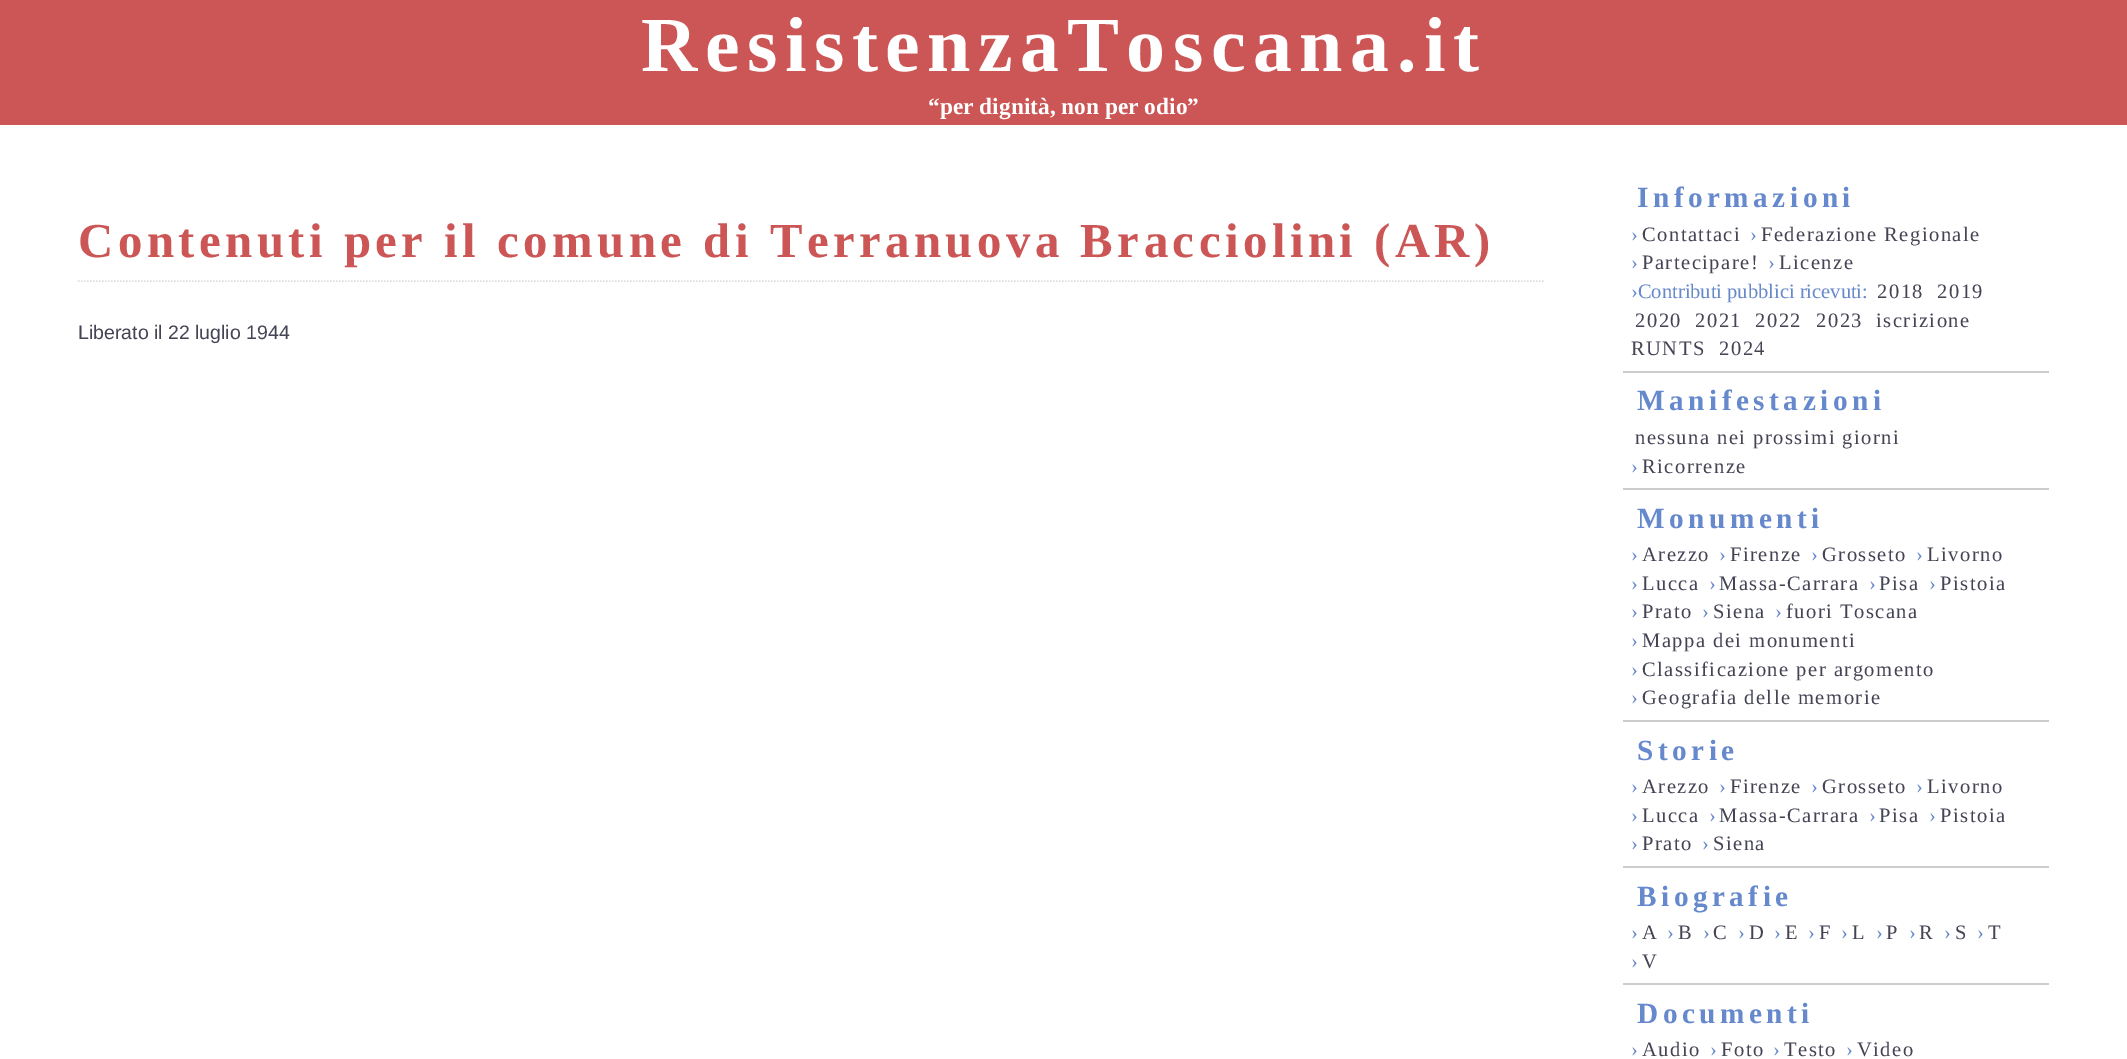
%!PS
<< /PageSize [2127 1059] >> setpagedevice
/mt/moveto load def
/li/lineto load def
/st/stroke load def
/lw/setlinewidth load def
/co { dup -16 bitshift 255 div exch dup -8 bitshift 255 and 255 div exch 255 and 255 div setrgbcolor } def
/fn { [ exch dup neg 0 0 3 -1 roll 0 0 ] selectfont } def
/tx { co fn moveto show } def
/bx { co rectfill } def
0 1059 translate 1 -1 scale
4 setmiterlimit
0 0 2127 1059 16#FFFFFF bx
0 0 2127 125 16#CC5555 bx
16#DDDDDD co
1.5 lw
[1.5 1.5] 0 setdash
78 281 mt 1543.5 281 li st
1623 371 426 2 16#CCCCCC bx
1623 488 426 2 16#CCCCCC bx
1623 720 426 2 16#CCCCCC bx
1623 866 426 2 16#CCCCCC bx
1623 983 426 2 16#CCCCCC bx
/LiberationSerif-Bold 78 fn
16#FFFFFF co
641 71 mt 7.5 0 (ResistenzaToscana.it) ashow
(“per dignità, non per odio”) 928 114 /LiberationSerif-Bold 23.4 16#FFFFFF tx
/LiberationSerif-Bold 48.75 fn
16#CC5555 co
78 257 mt 4.5 0 (Contenuti per il comune di Terranuova Bracciolini \(AR\)) ashow
(Liberato il 22 luglio 1944) 78 339 /LiberationSans-Regular 19.5 16#444455 tx
/LiberationSerif-Bold 29.25 fn
16#6688CC co
1637 207 mt 4.5 0 (Informazioni) ashow
(›) 1631 241 /LiberationSerif-Regular 20.5 16#6688CC tx
16#444455 co
1642 241 mt 1.5 0 (Contattaci) ashow
(›) 1750 241 /LiberationSerif-Regular 20.5 16#6688CC tx
16#444455 co
1761 241 mt 1.5 0 (Federazione Regionale) ashow
(›) 1631 269 /LiberationSerif-Regular 20.5 16#6688CC tx
16#444455 co
1642 269 mt 1.5 0 (Partecipare!) ashow
(›) 1768 269 /LiberationSerif-Regular 20.5 16#6688CC tx
16#444455 co
1779 269 mt 1.5 0 (Licenze) ashow
(›Contributi pubblici ricevuti:) 1631 298 /LiberationSerif-Regular 20.5 16#6688CC tx
16#444455 co
1877 298 mt 1.5 0 (2018) ashow
1937 298 mt 1.5 0 (2019) ashow
1635 327 mt 1.5 0 (2020) ashow
1695 327 mt 1.5 0 (2021) ashow
1755 327 mt 1.5 0 (2022) ashow
1816 327 mt 1.5 0 (2023) ashow
1876 327 mt 1.5 0 (iscrizione) ashow
1631 355 mt 1.5 0 (RUNTS) ashow
1719 355 mt 1.5 0 (2024) ashow
/LiberationSerif-Bold 29.25 fn
16#6688CC co
1637 410 mt 4.5 0 (Manifestazioni) ashow
/LiberationSerif-Regular 20.5 fn
16#444455 co
1635 444 mt 1.5 0 (nessuna nei prossimi giorni) ashow
(›) 1631 473 /LiberationSerif-Regular 20.5 16#6688CC tx
16#444455 co
1642 473 mt 1.5 0 (Ricorrenze) ashow
/LiberationSerif-Bold 29.25 fn
16#6688CC co
1637 528 mt 4.5 0 (Monumenti) ashow
(›) 1631 561 /LiberationSerif-Regular 20.5 16#6688CC tx
16#444455 co
1642 561 mt 1.5 0 (Arezzo) ashow
(›) 1719 561 /LiberationSerif-Regular 20.5 16#6688CC tx
16#444455 co
1730 561 mt 1.5 0 (Firenze) ashow
(›) 1811 561 /LiberationSerif-Regular 20.5 16#6688CC tx
16#444455 co
1822 561 mt 1.5 0 (Grosseto) ashow
(›) 1916 561 /LiberationSerif-Regular 20.5 16#6688CC tx
16#444455 co
1927 561 mt 1.5 0 (Livorno) ashow
(›) 1631 590 /LiberationSerif-Regular 20.5 16#6688CC tx
16#444455 co
1642 590 mt 1.5 0 (Lucca) ashow
(›) 1709 590 /LiberationSerif-Regular 20.5 16#6688CC tx
16#444455 co
1719 590 mt 1.5 0 (Massa-Carrara) ashow
(›) 1869 590 /LiberationSerif-Regular 20.5 16#6688CC tx
16#444455 co
1879 590 mt 1.5 0 (Pisa) ashow
(›) 1929 590 /LiberationSerif-Regular 20.5 16#6688CC tx
16#444455 co
1940 590 mt 1.5 0 (Pistoia) ashow
(›) 1631 618 /LiberationSerif-Regular 20.5 16#6688CC tx
16#444455 co
1642 618 mt 1.5 0 (Prato) ashow
(›) 1702 618 /LiberationSerif-Regular 20.5 16#6688CC tx
16#444455 co
1713 618 mt 1.5 0 (Siena) ashow
(›) 1775 618 /LiberationSerif-Regular 20.5 16#6688CC tx
16#444455 co
1786 618 mt 1.5 0 (fuori Toscana) ashow
(›) 1631 647 /LiberationSerif-Regular 20.5 16#6688CC tx
16#444455 co
1642 647 mt 1.5 0 (Mappa dei monumenti) ashow
(›) 1631 676 /LiberationSerif-Regular 20.5 16#6688CC tx
16#444455 co
1642 676 mt 1.5 0 (Classificazione per argomento) ashow
(›) 1631 704 /LiberationSerif-Regular 20.5 16#6688CC tx
16#444455 co
1642 704 mt 1.5 0 (Geografia delle memorie) ashow
/LiberationSerif-Bold 29.25 fn
16#6688CC co
1637 760 mt 4.5 0 (Storie) ashow
(›) 1631 793 /LiberationSerif-Regular 20.5 16#6688CC tx
16#444455 co
1642 793 mt 1.5 0 (Arezzo) ashow
(›) 1719 793 /LiberationSerif-Regular 20.5 16#6688CC tx
16#444455 co
1730 793 mt 1.5 0 (Firenze) ashow
(›) 1811 793 /LiberationSerif-Regular 20.5 16#6688CC tx
16#444455 co
1822 793 mt 1.5 0 (Grosseto) ashow
(›) 1916 793 /LiberationSerif-Regular 20.5 16#6688CC tx
16#444455 co
1927 793 mt 1.5 0 (Livorno) ashow
(›) 1631 822 /LiberationSerif-Regular 20.5 16#6688CC tx
16#444455 co
1642 822 mt 1.5 0 (Lucca) ashow
(›) 1709 822 /LiberationSerif-Regular 20.5 16#6688CC tx
16#444455 co
1719 822 mt 1.5 0 (Massa-Carrara) ashow
(›) 1869 822 /LiberationSerif-Regular 20.5 16#6688CC tx
16#444455 co
1879 822 mt 1.5 0 (Pisa) ashow
(›) 1929 822 /LiberationSerif-Regular 20.5 16#6688CC tx
16#444455 co
1940 822 mt 1.5 0 (Pistoia) ashow
(›) 1631 850 /LiberationSerif-Regular 20.5 16#6688CC tx
16#444455 co
1642 850 mt 1.5 0 (Prato) ashow
(›) 1702 850 /LiberationSerif-Regular 20.5 16#6688CC tx
16#444455 co
1713 850 mt 1.5 0 (Siena) ashow
/LiberationSerif-Bold 29.25 fn
16#6688CC co
1637 906 mt 4.5 0 (Biografie) ashow
(›) 1631 939 /LiberationSerif-Regular 20.5 16#6688CC tx
16#444455 co
1642 939 mt 1.5 0 (A) ashow
(›) 1667 939 /LiberationSerif-Regular 20.5 16#6688CC tx
16#444455 co
1678 939 mt 1.5 0 (B) ashow
(›) 1703 939 /LiberationSerif-Regular 20.5 16#6688CC tx
16#444455 co
1713 939 mt 1.5 0 (C) ashow
(›) 1738 939 /LiberationSerif-Regular 20.5 16#6688CC tx
16#444455 co
1749 939 mt 1.5 0 (D) ashow
(›) 1774 939 /LiberationSerif-Regular 20.5 16#6688CC tx
16#444455 co
1785 939 mt 1.5 0 (E) ashow
(›) 1808 939 /LiberationSerif-Regular 20.5 16#6688CC tx
16#444455 co
1819 939 mt 1.5 0 (F) ashow
(›) 1841 939 /LiberationSerif-Regular 20.5 16#6688CC tx
16#444455 co
1852 939 mt 1.5 0 (L) ashow
(›) 1876 939 /LiberationSerif-Regular 20.5 16#6688CC tx
16#444455 co
1886 939 mt 1.5 0 (P) ashow
(›) 1909 939 /LiberationSerif-Regular 20.5 16#6688CC tx
16#444455 co
1919 939 mt 1.5 0 (R) ashow
(›) 1944 939 /LiberationSerif-Regular 20.5 16#6688CC tx
16#444455 co
1955 939 mt 1.5 0 (S) ashow
(›) 1977 939 /LiberationSerif-Regular 20.5 16#6688CC tx
16#444455 co
1988 939 mt 1.5 0 (T) ashow
(›) 1631 968 /LiberationSerif-Regular 20.5 16#6688CC tx
16#444455 co
1642 968 mt 1.5 0 (V) ashow
/LiberationSerif-Bold 29.25 fn
16#6688CC co
1637 1023 mt 4.5 0 (Documenti) ashow
(›) 1631 1056 /LiberationSerif-Regular 20.5 16#6688CC tx
16#444455 co
1642 1056 mt 1.5 0 (Audio) ashow
(›) 1710 1056 /LiberationSerif-Regular 20.5 16#6688CC tx
16#444455 co
1721 1056 mt 1.5 0 (Foto) ashow
(›) 1773 1056 /LiberationSerif-Regular 20.5 16#6688CC tx
16#444455 co
1784 1056 mt 1.5 0 (Testo) ashow
(›) 1846 1056 /LiberationSerif-Regular 20.5 16#6688CC tx
16#444455 co
1857 1056 mt 1.5 0 (Video) ashow
showpage
